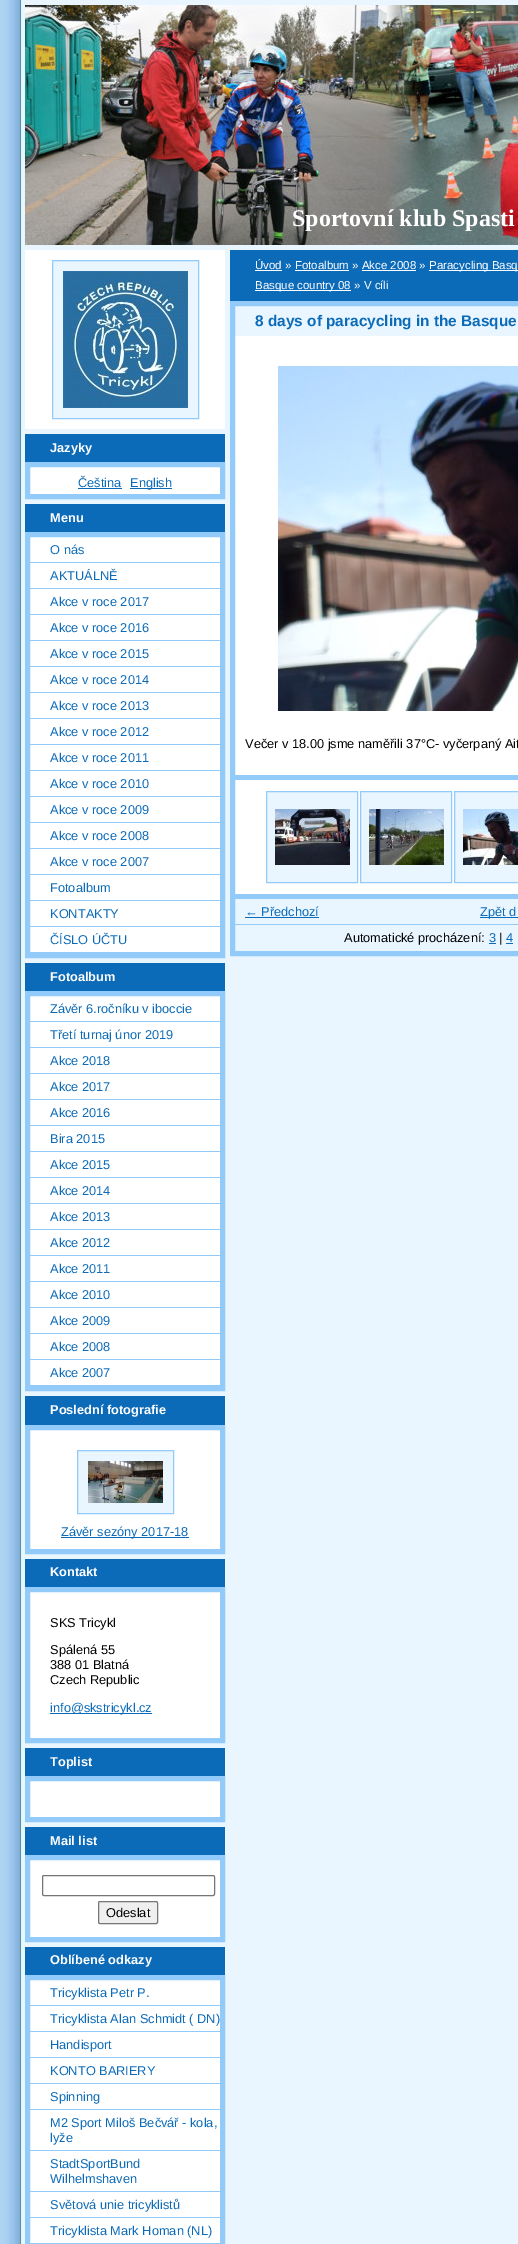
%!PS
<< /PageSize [518 2244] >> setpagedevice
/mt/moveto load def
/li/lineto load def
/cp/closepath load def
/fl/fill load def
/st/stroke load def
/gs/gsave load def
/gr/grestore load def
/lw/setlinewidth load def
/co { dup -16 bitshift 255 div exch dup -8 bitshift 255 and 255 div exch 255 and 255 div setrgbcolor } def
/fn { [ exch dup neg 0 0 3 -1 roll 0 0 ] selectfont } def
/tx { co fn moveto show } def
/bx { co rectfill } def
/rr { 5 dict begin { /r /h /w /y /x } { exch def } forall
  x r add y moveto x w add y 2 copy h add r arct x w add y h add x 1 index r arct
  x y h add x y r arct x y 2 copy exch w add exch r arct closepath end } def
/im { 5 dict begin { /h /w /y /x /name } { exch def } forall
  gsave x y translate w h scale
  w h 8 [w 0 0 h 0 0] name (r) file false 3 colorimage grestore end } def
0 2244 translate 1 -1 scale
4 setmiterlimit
0 0 518 2244 16#FFFFFF bx
(media/1.raw) 0 0 518 2244 im
(media/2.raw) 25 5 493 240 im
25 250 200 179 16#FFFFFF bx
16#E9F6FF co
52.5 260.5 mt 198.5 260.5 li 198.5 418.5 li 52.5 418.5 li cp gs fl gr
16#92CBF9 co
st
(media/3.raw) 63 271 125 137 im
25 434 200 28 16#0C6BB8 bx
16#FFFFFF co
27.5 464.5 mt 222.5 464.5 li 222.5 496.5 li 27.5 496.5 li cp gs fl gr
16#92CBF9 co
5 lw
st
78 488 44 1 16#0C6BB8 bx
130 488 42 1 16#0C6BB8 bx
25 504 200 28 16#0C6BB8 bx
30 537 190 415 16#FFFFFF bx
16#92CBF9 co
27.5 534.5 195 421 rectstroke
30 562 190 1 16#92CBF9 bx
30 588 190 1 16#92CBF9 bx
30 614 190 1 16#92CBF9 bx
30 640 190 1 16#92CBF9 bx
30 666 190 1 16#92CBF9 bx
30 692 190 1 16#92CBF9 bx
30 718 190 1 16#92CBF9 bx
30 744 190 1 16#92CBF9 bx
30 770 190 1 16#92CBF9 bx
30 796 190 1 16#92CBF9 bx
30 822 190 1 16#92CBF9 bx
30 848 190 1 16#92CBF9 bx
30 874 190 1 16#92CBF9 bx
30 900 190 1 16#92CBF9 bx
30 926 190 1 16#92CBF9 bx
30 952 190 1 16#92CBF9 bx
25 963 200 28 16#0C6BB8 bx
30 996 190 389 16#FFFFFF bx
16#92CBF9 co
27.5 993.5 195 395 rectstroke
30 1021 190 1 16#92CBF9 bx
30 1047 190 1 16#92CBF9 bx
30 1073 190 1 16#92CBF9 bx
30 1099 190 1 16#92CBF9 bx
30 1125 190 1 16#92CBF9 bx
30 1151 190 1 16#92CBF9 bx
30 1177 190 1 16#92CBF9 bx
30 1203 190 1 16#92CBF9 bx
30 1229 190 1 16#92CBF9 bx
30 1255 190 1 16#92CBF9 bx
30 1281 190 1 16#92CBF9 bx
30 1307 190 1 16#92CBF9 bx
30 1333 190 1 16#92CBF9 bx
30 1359 190 1 16#92CBF9 bx
30 1385 190 1 16#92CBF9 bx
25 1396 200 29 16#0C6BB8 bx
16#FFFFFF co
27.5 1427.5 mt 222.5 1427.5 li 222.5 1551.5 li 27.5 1551.5 li cp gs fl gr
16#92CBF9 co
st
16#E9F6FF co
77.5 1450.5 mt 173.5 1450.5 li 173.5 1513.5 li 77.5 1513.5 li cp gs fl gr
16#92CBF9 co
1 lw
st
(media/4.raw) 88 1461 75 42 im
61 1537 128 1 16#0C6BB8 bx
25 1559 200 28 16#0C6BB8 bx
16#FFFFFF co
27.5 1589.5 mt 222.5 1589.5 li 222.5 1740.5 li 27.5 1740.5 li cp gs fl gr
16#92CBF9 co
5 lw
st
50 1713 102 1 16#0C6BB8 bx
25 1748 200 28 16#0C6BB8 bx
16#FFFFFF co
27.5 1778.5 mt 222.5 1778.5 li 222.5 1819.5 li 27.5 1819.5 li cp gs fl gr
16#92CBF9 co
st
25 1827 200 28 16#0C6BB8 bx
16#FFFFFF co
27.5 1857.5 mt 222.5 1857.5 li 222.5 1939.5 li 27.5 1939.5 li cp gs fl gr
16#92CBF9 co
st
16#767676 co
1 lw
42.5 1875.5 172 20 1.5 rr st
16#EFEFEF co
98.5 1901.5 59 22 1.5 rr gs fl gr
16#767676 co
st
25 1947 200 28 16#0C6BB8 bx
30 1980 190 263 16#FFFFFF bx
16#92CBF9 co
5 lw
27.5 1977.5 195 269 rectstroke
30 2005 190 1 16#92CBF9 bx
30 2031 190 1 16#92CBF9 bx
30 2057 190 1 16#92CBF9 bx
30 2083 190 1 16#92CBF9 bx
30 2109 190 1 16#92CBF9 bx
30 2150 190 1 16#92CBF9 bx
30 2191 190 1 16#92CBF9 bx
30 2217 190 1 16#92CBF9 bx
30 2243 190 1 16#92CBF9 bx
230 250 288 51 16#0C6BB8 bx
255 270 27 1 16#FFFFFF bx
429 270 89 1 16#FFFFFF bx
295 270 54 1 16#FFFFFF bx
362 270 54 1 16#FFFFFF bx
255 290 96 1 16#FFFFFF bx
235 336 283 558 16#FFFFFF bx
16#92CBF9 co
232.5 303.5 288 650 rectstroke
(media/5.raw) 278 366 240 345 im
235 775 283 5 16#92CBF9 bx
16#E9F6FF co
266.5 791.5 mt 357.5 791.5 li 357.5 882.5 li 266.5 882.5 li cp gs fl gr
16#92CBF9 co
1 lw
st
(media/6.raw) 275 809 75 56 im
16#E9F6FF co
360.5 791.5 mt 451.5 791.5 li 451.5 882.5 li 360.5 882.5 li cp gs fl gr
16#92CBF9 co
st
(media/7.raw) 369 809 75 56 im
16#E9F6FF co
454.5 791.5 mt 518.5 791.5 li 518.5 882.5 li 454.5 882.5 li cp gs fl gr
16#92CBF9 co
st
(media/8.raw) 463 809 55 56 im
235 894 283 5 16#92CBF9 bx
245 917 74 1 16#0C6BB8 bx
480 917 38 1 16#0C6BB8 bx
235 924 283 1 16#92CBF9 bx
489 943 7 1 16#0C6BB8 bx
506 943 7 1 16#0C6BB8 bx
(Sportovní klub Spasti) 292 226 /LiberationSerif-Bold 24 16#FFFFFF tx
(Jazyky) 50 452 /LiberationSans-Bold 12.8 16#FFFFFF tx
(Čeština) 78 487 /LiberationSans-Regular 12.8 16#0C6BB8 tx
(English) 130 487 /LiberationSans-Regular 12.8 16#0C6BB8 tx
(Menu) 50 522 /LiberationSans-Bold 12.8 16#FFFFFF tx
(O nás) 50 554 /LiberationSans-Regular 12.8 16#0C6BB8 tx
(AKTUÁLNĚ) 50 580 /LiberationSans-Regular 12.8 16#0C6BB8 tx
(Akce v roce 2017) 50 606 /LiberationSans-Regular 12.8 16#0C6BB8 tx
(Akce v roce 2016) 50 632 /LiberationSans-Regular 12.8 16#0C6BB8 tx
(Akce v roce 2015) 50 658 /LiberationSans-Regular 12.8 16#0C6BB8 tx
(Akce v roce 2014) 50 684 /LiberationSans-Regular 12.8 16#0C6BB8 tx
(Akce v roce 2013) 50 710 /LiberationSans-Regular 12.8 16#0C6BB8 tx
(Akce v roce 2012) 50 736 /LiberationSans-Regular 12.8 16#0C6BB8 tx
(Akce v roce 2011) 50 762 /LiberationSans-Regular 12.8 16#0C6BB8 tx
(Akce v roce 2010) 50 788 /LiberationSans-Regular 12.8 16#0C6BB8 tx
(Akce v roce 2009) 50 814 /LiberationSans-Regular 12.8 16#0C6BB8 tx
(Akce v roce 2008) 50 840 /LiberationSans-Regular 12.8 16#0C6BB8 tx
(Akce v roce 2007) 50 866 /LiberationSans-Regular 12.8 16#0C6BB8 tx
(Fotoalbum) 50 892 /LiberationSans-Regular 12.8 16#0C6BB8 tx
(KONTAKTY) 50 918 /LiberationSans-Regular 12.8 16#0C6BB8 tx
(ČÍSLO ÚČTU) 50 944 /LiberationSans-Regular 12.8 16#0C6BB8 tx
(Fotoalbum) 50 981 /LiberationSans-Bold 12.8 16#FFFFFF tx
(Závěr 6.ročníku v iboccie) 50 1013 /LiberationSans-Regular 12.8 16#0C6BB8 tx
(Třetí turnaj únor 2019) 50 1039 /LiberationSans-Regular 12.8 16#0C6BB8 tx
(Akce 2018) 50 1065 /LiberationSans-Regular 12.8 16#0C6BB8 tx
(Akce 2017) 50 1091 /LiberationSans-Regular 12.8 16#0C6BB8 tx
(Akce 2016) 50 1117 /LiberationSans-Regular 12.8 16#0C6BB8 tx
(Bira 2015) 50 1143 /LiberationSans-Regular 12.8 16#0C6BB8 tx
(Akce 2015) 50 1169 /LiberationSans-Regular 12.8 16#0C6BB8 tx
(Akce 2014) 50 1195 /LiberationSans-Regular 12.8 16#0C6BB8 tx
(Akce 2013) 50 1221 /LiberationSans-Regular 12.8 16#0C6BB8 tx
(Akce 2012) 50 1247 /LiberationSans-Regular 12.8 16#0C6BB8 tx
(Akce 2011) 50 1273 /LiberationSans-Regular 12.8 16#0C6BB8 tx
(Akce 2010) 50 1299 /LiberationSans-Regular 12.8 16#0C6BB8 tx
(Akce 2009) 50 1325 /LiberationSans-Regular 12.8 16#0C6BB8 tx
(Akce 2008) 50 1351 /LiberationSans-Regular 12.8 16#0C6BB8 tx
(Akce 2007) 50 1377 /LiberationSans-Regular 12.8 16#0C6BB8 tx
(Poslední fotografie) 50 1414 /LiberationSans-Bold 12.8 16#FFFFFF tx
(Závěr sezóny 2017-18) 61 1536 /LiberationSans-Regular 12.8 16#0C6BB8 tx
(Kontakt) 50 1576 /LiberationSans-Bold 12.8 16#FFFFFF tx
(SKS Tricykl) 50 1627 /LiberationSans-Regular 12.8 16#000000 tx
(Spálená 55) 50 1654 /LiberationSans-Regular 12.8 16#000000 tx
(388 01 Blatná) 50 1669 /LiberationSans-Regular 12.8 16#000000 tx
(Czech Republic) 50 1684 /LiberationSans-Regular 12.8 16#000000 tx
(info@skstricykl.cz) 50 1712 /LiberationSans-Regular 12.8 16#0C6BB8 tx
(Toplist) 50 1766 /LiberationSans-Bold 12.8 16#FFFFFF tx
(Mail list) 50 1845 /LiberationSans-Bold 12.8 16#FFFFFF tx
(Odeslat) 106 1917 /LiberationSans-Regular 12.8 16#000000 tx
(Oblíbené odkazy) 50 1964 /LiberationSans-Bold 12.8 16#FFFFFF tx
(Tricyklista Petr P.) 50 1997 /LiberationSans-Regular 12.8 16#0C6BB8 tx
(Tricyklista Alan Schmidt \( DN\)) 50 2023 /LiberationSans-Regular 12.8 16#0C6BB8 tx
(Handisport) 50 2049 /LiberationSans-Regular 12.8 16#0C6BB8 tx
(KONTO BARIERY) 50 2075 /LiberationSans-Regular 12.8 16#0C6BB8 tx
(Spinning) 50 2101 /LiberationSans-Regular 12.8 16#0C6BB8 tx
(M2 Sport Miloš Bečvář - kola,) 50 2127 /LiberationSans-Regular 12.8 16#0C6BB8 tx
(lyže) 50 2142 /LiberationSans-Regular 12.8 16#0C6BB8 tx
(StadtSportBund) 50 2168 /LiberationSans-Regular 12.8 16#0C6BB8 tx
(Wilhelmshaven) 50 2183 /LiberationSans-Regular 12.8 16#0C6BB8 tx
(Světová unie tricyklistů) 50 2209 /LiberationSans-Regular 12.8 16#0C6BB8 tx
(Tricyklista Mark Homan \(NL\)) 50 2235 /LiberationSans-Regular 12.8 16#0C6BB8 tx
(Úvod » Fotoalbum » Akce 2008 ») 255 269 /LiberationSans-Regular 11.5 16#FFFFFF tx
(Paracycling Basq) 429 269 /LiberationSans-Regular 11.5 16#FFFFFF tx
(Basque country 08 » V cíli) 255 289 /LiberationSans-Regular 11.5 16#FFFFFF tx
(8 days of paracycling in the Basque) 255 326 /LiberationSans-Bold 15.4 16#0C6BB8 tx
(Večer v 18.00 jsme naměřili 37°C- vyčerpaný Ait) 245 748 /LiberationSans-Regular 12.8 16#000000 tx
(← Předchozí) 245 916 /LiberationSans-Regular 12.8 16#0C6BB8 tx
(Zpět d) 480 916 /LiberationSans-Regular 12.8 16#0C6BB8 tx
(Automatické procházení:) 344 942 /LiberationSans-Regular 12.8 16#000000 tx
(3) 489 942 /LiberationSans-Regular 12.8 16#0C6BB8 tx
(|) 499 942 /LiberationSans-Regular 12.8 16#000000 tx
(4) 506 942 /LiberationSans-Regular 12.8 16#0C6BB8 tx
showpage
